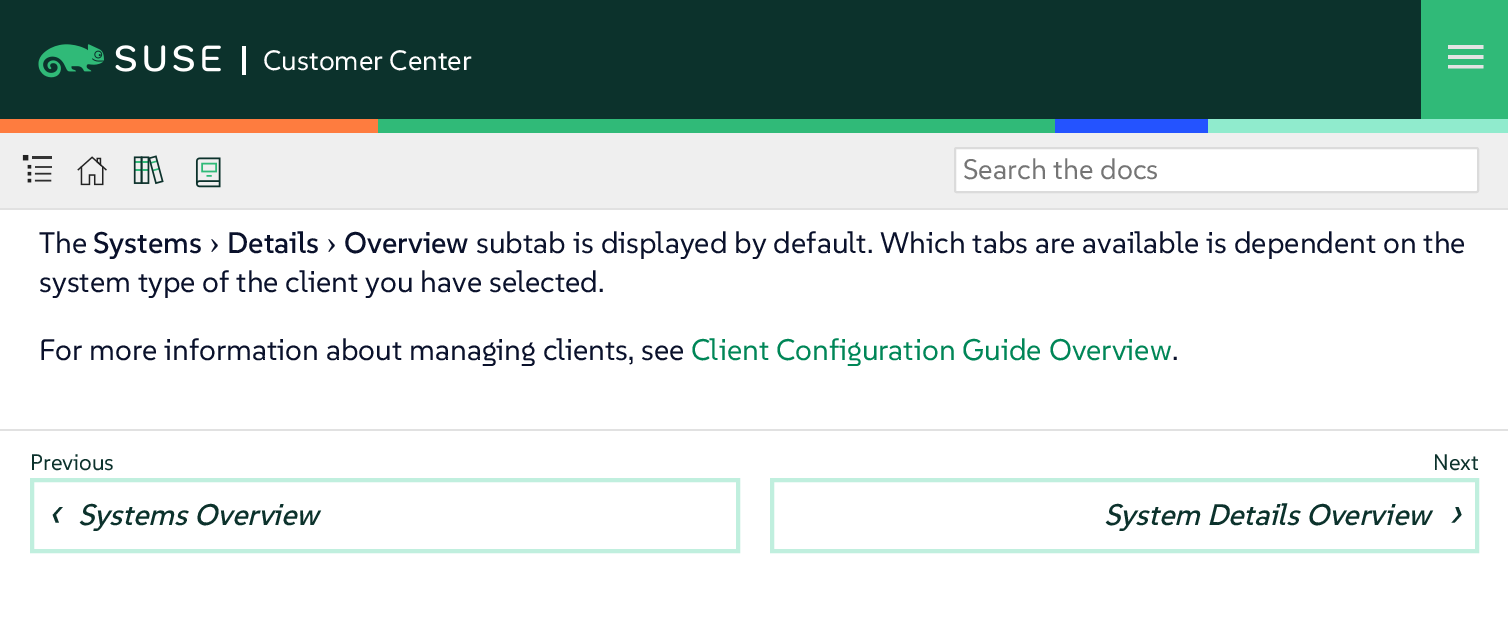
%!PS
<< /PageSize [1508 639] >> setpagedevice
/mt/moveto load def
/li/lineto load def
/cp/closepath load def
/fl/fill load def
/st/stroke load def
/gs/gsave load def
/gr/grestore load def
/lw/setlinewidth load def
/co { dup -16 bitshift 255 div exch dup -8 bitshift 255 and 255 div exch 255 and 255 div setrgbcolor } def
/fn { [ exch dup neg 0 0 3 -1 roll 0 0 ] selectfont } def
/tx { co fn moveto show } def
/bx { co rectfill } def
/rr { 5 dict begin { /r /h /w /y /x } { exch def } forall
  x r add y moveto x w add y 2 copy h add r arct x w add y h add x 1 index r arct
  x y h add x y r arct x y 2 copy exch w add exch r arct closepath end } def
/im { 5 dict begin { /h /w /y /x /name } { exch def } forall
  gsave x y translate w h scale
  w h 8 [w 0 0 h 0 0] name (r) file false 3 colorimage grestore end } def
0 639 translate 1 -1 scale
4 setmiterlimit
0 0 1508 639 16#FFFFFF bx
0 0 1421 119 16#0C322C bx
(media/1.raw) 38 44 183 34 im
242 46 4 29 16#FFFFFF bx
1421 0 87 119 16#30BA78 bx
16#E3E3E3 co
1448 68.5 mt 1448 65 li 1483.5 65 li 1483.5 68.5 li cp 1448 59 mt 1448 55 li 1483.5 55 li 1483.5 59 li cp 1448 49 mt 1448 45 li 1483.5 45 li 1483.5 49 li cp fl
0 119 378 14 16#FE7C3F bx
378 119 677 14 16#30BA78 bx
1055 119 153 14 16#2453FF bx
1208 119 300 14 16#90EBCD bx
16#E1E1E1 co
0 208 mt 0 210 li 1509 210 li 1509 135 li 1508 135 li 1508 208 li cp fl
0 133 1508 75 16#EFEFEF bx
(media/2.raw) 22 154 30 29 im
(media/3.raw) 77 156 30 30 im
(media/4.raw) 133 155 31 30 im
(media/5.raw) 195 157 26 31 im
16#FFFFFF co
955 148 523 44 1.5 rr gs fl gr
16#DBDBDB co
2 lw
st
0 429 1508 2 16#E1E1E1 bx
16#C0EFDE co
4 lw
32 480 706 71 rectstroke
772 480 705 71 rectstroke
(Customer Center) 263 70 /SUSE-Regular 28 16#FFFFFF tx
(Search the docs) 963 179 /SUSE-Regular 28.25 16#757575 tx
(The) 39 253 /SUSE-Regular 29.75 16#0A112B tx
(Systems) 93 253 /SUSE-Medium 29.75 16#0A112B tx
(›) 209 253 /LiberationSerif-Regular 33 16#0A112B tx
(Details) 227 253 /SUSE-Medium 29.75 16#0A112B tx
(›) 326 253 /LiberationSerif-Regular 33 16#0A112B tx
(Overview) 344 253 /SUSE-Medium 29.75 16#0A112B tx
(subtab is displayed by default. Which tabs are available is dependent on the) 476 253 /SUSE-Regular 29.75 16#0A112B tx
(system type of the client you have selected.) 39 292 /SUSE-Regular 29.75 16#0A112B tx
(For more information about managing clients, see) 39 360 /SUSE-Regular 29.75 16#0A112B tx
(Client Configuration Guide Overview) 691 360 /SUSE-Regular 29.75 16#008657 tx
(.) 1172 360 /SUSE-Regular 29.75 16#0A112B tx
(Previous) 30 470 /SUSE-Regular 22.5 16#0C322C tx
(‹) 48 527 /SUSE-Italic 45 16#0C322C tx
(Systems Overview) 78 525 /SUSE-MediumItalic 29.75 16#0C322C tx
(Next) 1433 470 /SUSE-Regular 22.5 16#0C322C tx
(System Details Overview) 1104 525 /SUSE-MediumItalic 29.75 16#0C322C tx
(›) 1448 527 /SUSE-Italic 45 16#0C322C tx
showpage
